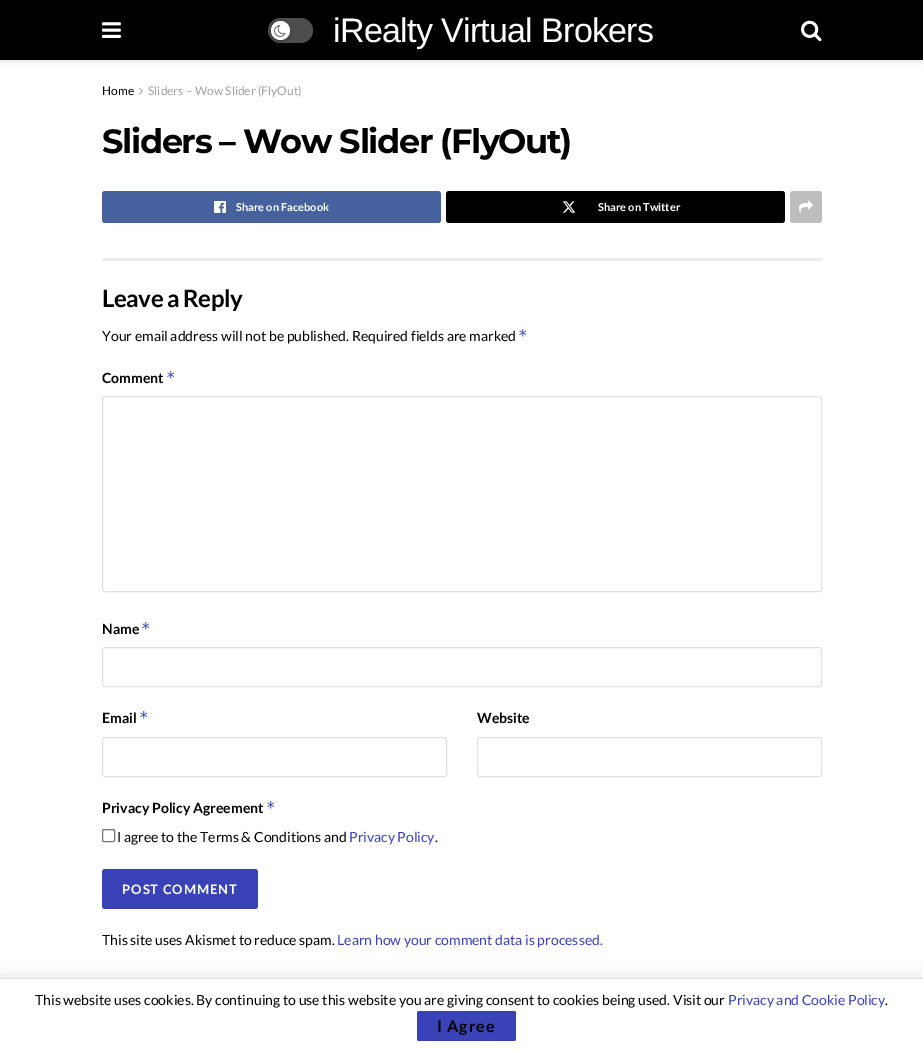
%!PS
<< /PageSize [923 1051] /PageUsesTransparency true >> setpagedevice
/mt/moveto load def
/fl/fill load def
/st/stroke load def
/co { dup -16 bitshift 255 div exch dup -8 bitshift 255 and 255 div exch 255 and 255 div setrgbcolor } def
/fn { [ exch dup neg 0 0 3 -1 roll 0 0 ] selectfont } def
/tx { co fn moveto show } def
/bx { co rectfill } def
/al { dup .setfillconstantalpha .setstrokeconstantalpha } def
/ci { newpath 0 360 arc closepath } def
/rr { 5 dict begin { /r /h /w /y /x } { exch def } forall
  x r add y moveto x w add y 2 copy h add r arct x w add y h add x 1 index r arct
  x y h add x y r arct x y 2 copy exch w add exch r arct closepath end } def
/sh { 12 dict begin { /a /b /q /h /w /y /x } { exch def } forall gsave /was 0 def
  9 -2 -9 { dup b mul 4 div /e exch def 1 sub .425 mul 2.718 exch exp 1 add a .99 .min exch div /now exch def
    1 1 now sub 1 was sub div sub al /was now def
    w h .min e 2 mul add 0 gt { x e sub y e sub w e 2 mul add h e 2 mul add
      q e add b .6 mul add w h .min 2 div e add .min 0 .max rr fill } if } for grestore end } def
/im { 5 dict begin { /h /w /y /x /name } { exch def } forall
  gsave x y translate w h scale
  w h 8 [w 0 0 h 0 0] name (r) file false 3 colorimage grestore end } def
0 .pushpdf14devicefilter
0 1051 translate 1 -1 scale
4 setmiterlimit
0 0 923 1051 16#FFFFFF bx
16#000000 co
0 2 923 60 0 3 .1 sh
0 0 923 60 16#000000 bx
(media/1.raw) 102 22 19 16 im
16#4D4D4D co
268 18 45 25 12.5 rr fl
16#000000 co
271 22 19 19 9.5 1.5 .3 sh
16#FFFFFF co
280.5 30.5 9.5 ci fl
(media/2.raw) 274 25 12 12 im
(media/3.raw) 801 20 21 22 im
(media/4.raw) 139 87 4 8 im
16#45629F co
102 191 339 32 3 rr fl
(media/5.raw) 214 201 12 12 im
16#000000 co
446 191 339 32 3 rr fl
(media/6.raw) 562 201 14 12 im
16#BDBDBD co
790 191 32 32 3 rr fl
(media/7.raw) 799 200 14 13 im
102 258 720 3 16#EEEEEE bx
16#E0E0E0 co
102.5 396.5 719 195 2.5 rr st
102.5 647.5 719 39 2.5 rr st
102.5 737.5 344 39 2.5 rr st
477.5 737.5 344 39 2.5 rr st
16#767676 co
102.5 829.5 12 12 1.5 rr st
16#3943B7 co
102 869 156 40 3 rr fl
16#000000 co
0 981 923 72 0 10 .15 sh
0 979 923 72 0 .5 .2 sh
0 979 923 72 16#FFFFFF bx
16#3943B7 co
417 1011 99 30 2 rr fl
/LiberationSans-Regular 34 fn
16#FFFFFF co
333 42 mt -.7 0 (iRealty Virtual Brokers) ashow
(Home) 102 95 /Lato-Regular 12 16#000000 tx
(Sliders – Wow Slider \(FlyOut\)) 148 95 /Lato-Regular 12 16#A0A0A0 tx
/Montserrat-Bold 33.6 fn
16#000000 co
102 153 mt -1.35 0 (Sliders – Wow Slider \(FlyOut\)) ashow
(Share on Facebook) 236 211 /Lato-Bold 11 16#FFFFFF tx
(Share on Twitter) 598 211 /Lato-Bold 11 16#FFFFFF tx
/Lato-Bold 24 fn
16#000000 co
102 307 mt -.5 0 (Leave a Reply) ashow
(Your email address will not be published. Required fields are marked) 102 341 /Lato-Regular 14 16#000000 tx
(*) 518 341 /DejaVuSansMono-Regular 16 16#3943B7 tx
(Comment) 102 383 /Lato-Bold 14 16#000000 tx
(*) 166 383 /DejaVuSansMono-Regular 16 16#3943B7 tx
(Name) 102 634 /Lato-Bold 14 16#000000 tx
(*) 141 634 /DejaVuSansMono-Regular 16 16#3943B7 tx
(Email) 102 723 /Lato-Bold 14 16#000000 tx
(*) 139 723 /DejaVuSansMono-Regular 16 16#3943B7 tx
(Website) 477 723 /Lato-Bold 14 16#000000 tx
(Privacy Policy Agreement) 102 813 /Lato-Bold 14 16#000000 tx
(*) 266 813 /DejaVuSansMono-Regular 16 16#3943B7 tx
(I agree to the Terms & Conditions and) 117 842 /Lato-Regular 14 16#000000 tx
(Privacy Policy) 349 842 /Lato-Regular 14 16#3943B7 tx
(.) 435 842 /Lato-Regular 14 16#000000 tx
/Lato-Bold 13 fn
16#FFFFFF co
122 894 mt 1 0 (POST COMMENT) ashow
(This site uses Akismet to reduce spam.) 102 945 /Lato-Regular 14 16#000000 tx
(Learn how your comment data is processed.) 337 945 /Lato-Regular 14 16#3943B7 tx
(This website uses cookies. By continuing to use this website you are giving consent to cookies being used. Visit our) 35 1005 /Lato-Regular 14 16#000000 tx
(Privacy and Cookie Policy) 728 1005 /Lato-Regular 14 16#3943B7 tx
(.) 885 1005 /Lato-Regular 14 16#000000 tx
/Lato-Bold 16 fn
437 1032 mt 1 0 (I Agree) ashow
.poppdf14devicefilter showpage
